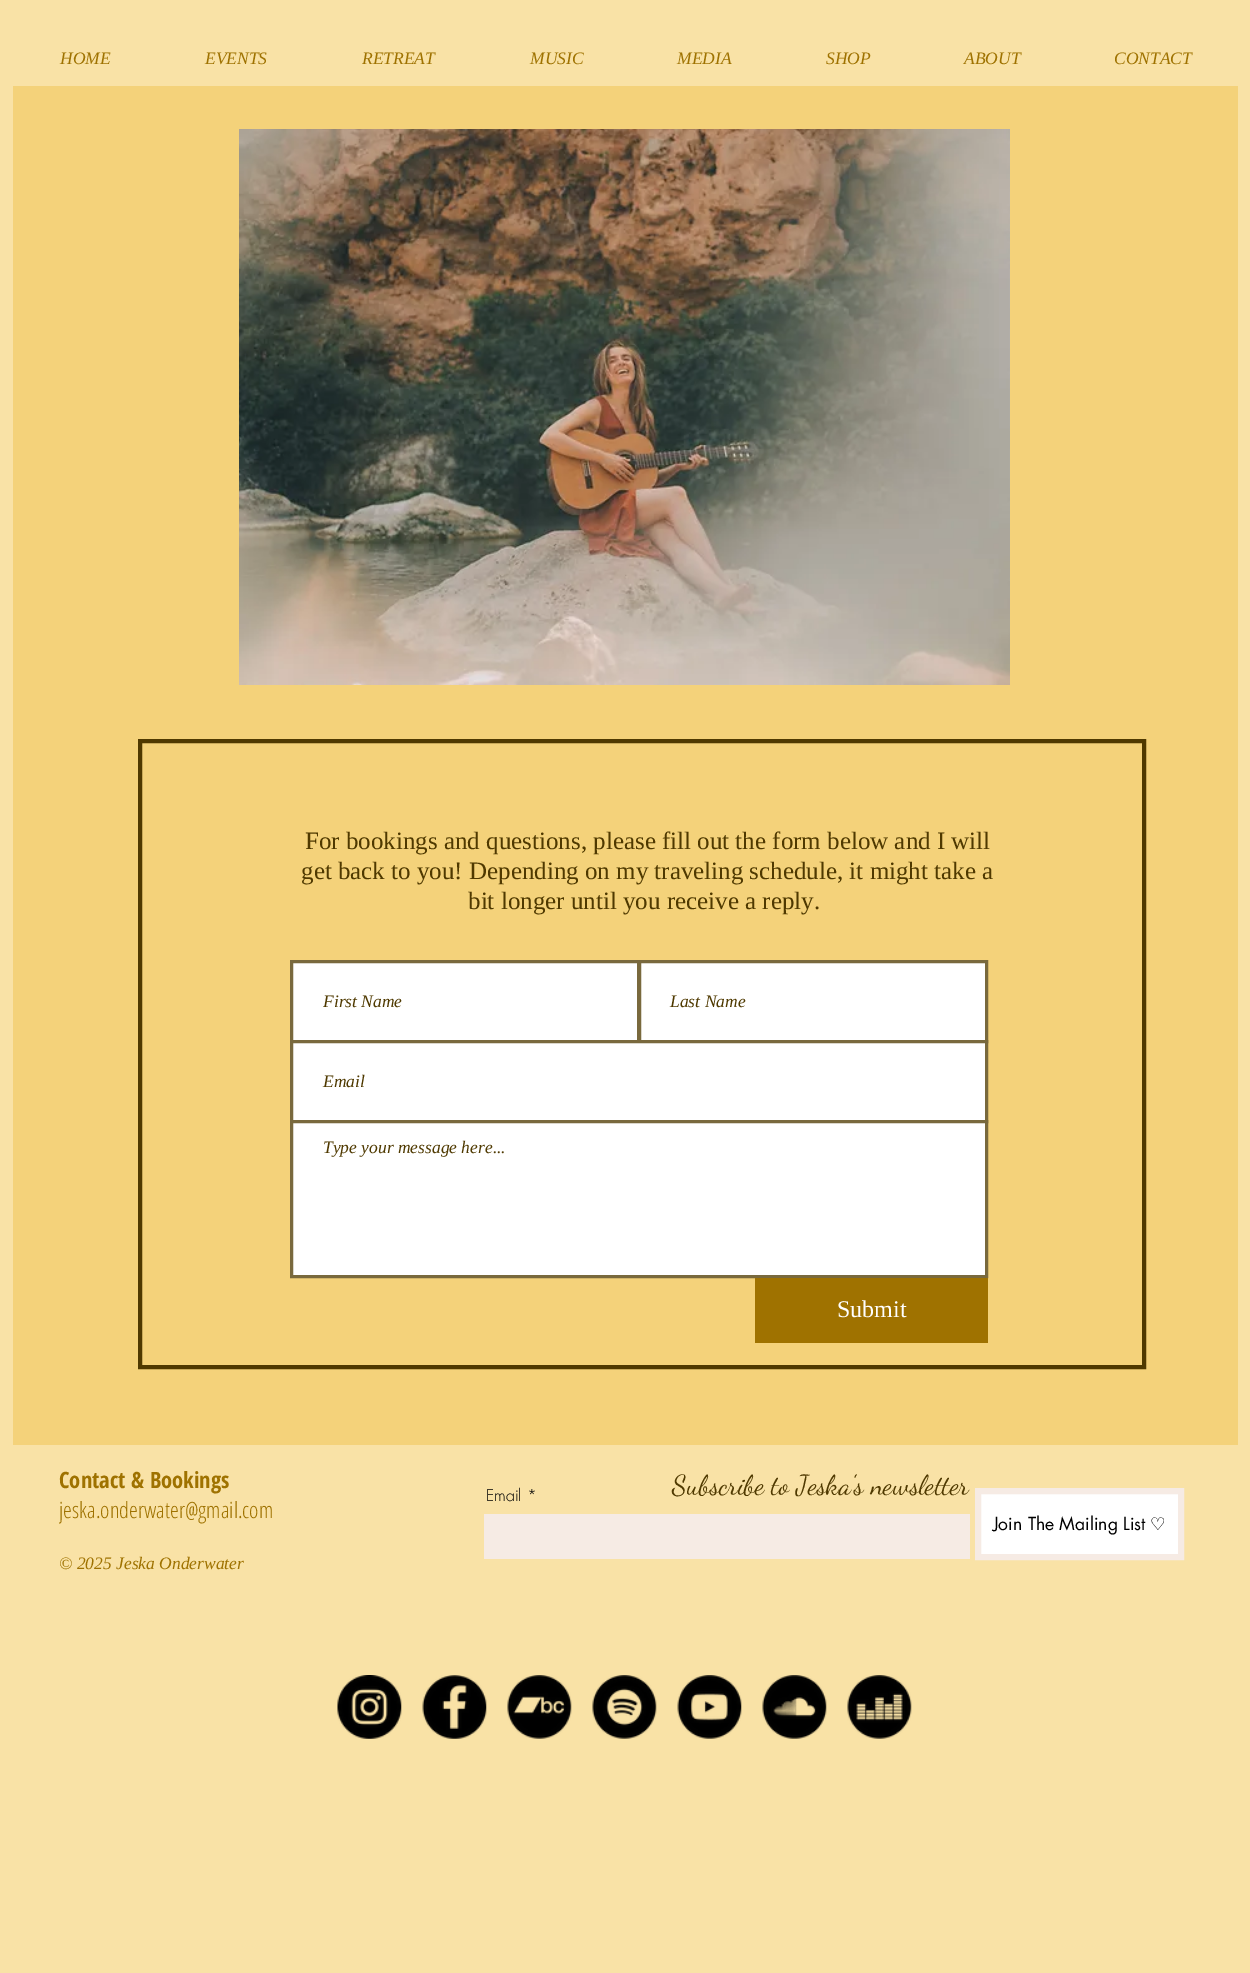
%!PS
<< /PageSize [1250 1973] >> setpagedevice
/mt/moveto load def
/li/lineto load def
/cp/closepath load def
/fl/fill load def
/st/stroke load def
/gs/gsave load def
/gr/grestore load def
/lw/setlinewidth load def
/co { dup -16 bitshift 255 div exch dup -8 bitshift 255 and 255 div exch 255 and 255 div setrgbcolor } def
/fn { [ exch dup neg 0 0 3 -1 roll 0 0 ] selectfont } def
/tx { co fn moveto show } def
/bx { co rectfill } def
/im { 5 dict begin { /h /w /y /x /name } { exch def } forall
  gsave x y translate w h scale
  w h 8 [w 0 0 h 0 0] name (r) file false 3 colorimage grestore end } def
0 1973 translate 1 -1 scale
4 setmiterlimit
0 0 1250 1973 16#F9E2A6 bx
13 86 1225 1359 16#F4D27A bx
(media/1.raw) 239 129 771 556 im
16#4F3900 co
4 lw
140 741 1004 626 rectstroke
16#FFFFFF co
291.5 961.5 mt 638.5 961.5 li 638.5 1041.5 li 291.5 1041.5 li cp gs fl gr
16#79693D co
3 lw
st
16#FFFFFF co
639.5 961.5 mt 986.5 961.5 li 986.5 1041.5 li 639.5 1041.5 li cp gs fl gr
16#79693D co
st
16#FFFFFF co
291.5 1041.5 mt 986.5 1041.5 li 986.5 1121.5 li 291.5 1121.5 li cp gs fl gr
16#79693D co
st
16#FFFFFF co
291.5 1121.5 mt 986.5 1121.5 li 986.5 1276.5 li 291.5 1276.5 li cp gs fl gr
16#79693D co
st
755 1278 233 65 16#9F7200 bx
484 1514 486 45 16#F6EBE4 bx
16#FFFFFF co
978 1491 mt 1181 1491 li 1181 1557 li 978 1557 li cp gs fl gr
16#F6EBE4 co
6 lw
st
(media/2.raw) 337 1675 65 64 im
(media/3.raw) 422 1675 65 64 im
(media/4.raw) 507 1675 65 64 im
(media/5.raw) 592 1675 65 64 im
(media/6.raw) 677 1675 65 64 im
(media/7.raw) 762 1675 65 64 im
(media/8.raw) 847 1675 65 64 im
(HOME) 60 64 /LiberationSerif-Italic 17.5 16#9F7200 tx
(EVENTS) 205 64 /LiberationSerif-Italic 17.5 16#9F7200 tx
(RETREAT) 362 64 /LiberationSerif-Italic 17.5 16#9F7200 tx
(MUSIC) 530 64 /LiberationSerif-Italic 17.5 16#9F7200 tx
(MEDIA) 677 64 /LiberationSerif-Italic 17.5 16#9F7200 tx
(SHOP) 826 64 /LiberationSerif-Italic 17.5 16#9F7200 tx
(ABOUT) 964 64 /LiberationSerif-Italic 17.5 16#9F7200 tx
(CONTACT) 1114 64 /LiberationSerif-Italic 17.5 16#9F7200 tx
(For bookings and questions, please fill out the form below and I will) 305 849 /LiberationSerif-Regular 25 16#4F3900 tx
(get back to you! Depending on my traveling schedule, it might take a) 301 879 /LiberationSerif-Regular 25 16#4F3900 tx
(bit longer until you receive a reply.) 468 909 /LiberationSerif-Regular 25 16#4F3900 tx
(First Name) 323 1007 /LiberationSerif-Italic 17.5 16#4F3900 tx
(Last Name) 670 1007 /LiberationSerif-Italic 17.5 16#4F3900 tx
(Email) 323 1087 /LiberationSerif-Italic 17.5 16#4F3900 tx
(Type your message here...) 323 1153 /LiberationSerif-Italic 17.5 16#4F3900 tx
(Submit) 837 1317 /LiberationSerif-Regular 24 16#FFFFFF tx
(Contact & Bookings) 59 1488 /OpenSansCondensed-Bold 22.5 16#9F7200 tx
(jeska.onderwater@gmail.com) 59 1518 /OpenSansCondensed-Light 22.5 16#9F7200 tx
(Email *) 486 1501 /futura-Light 16 16#000000 tx
(Subscribe to Jeska's newsletter) 672 1494 /DancingScript-Regular 27.5 16#4F3900 tx
(Join The Mailing List) 993 1530 /futura-Regular 17.5 16#000000 tx
(♡) 1150 1530 /DejaVuSans-Regular 17.5 16#000000 tx
(© 2025 Jeska Onderwater) 59 1569 /LiberationSerif-Italic 17.5 16#9F7200 tx
showpage
